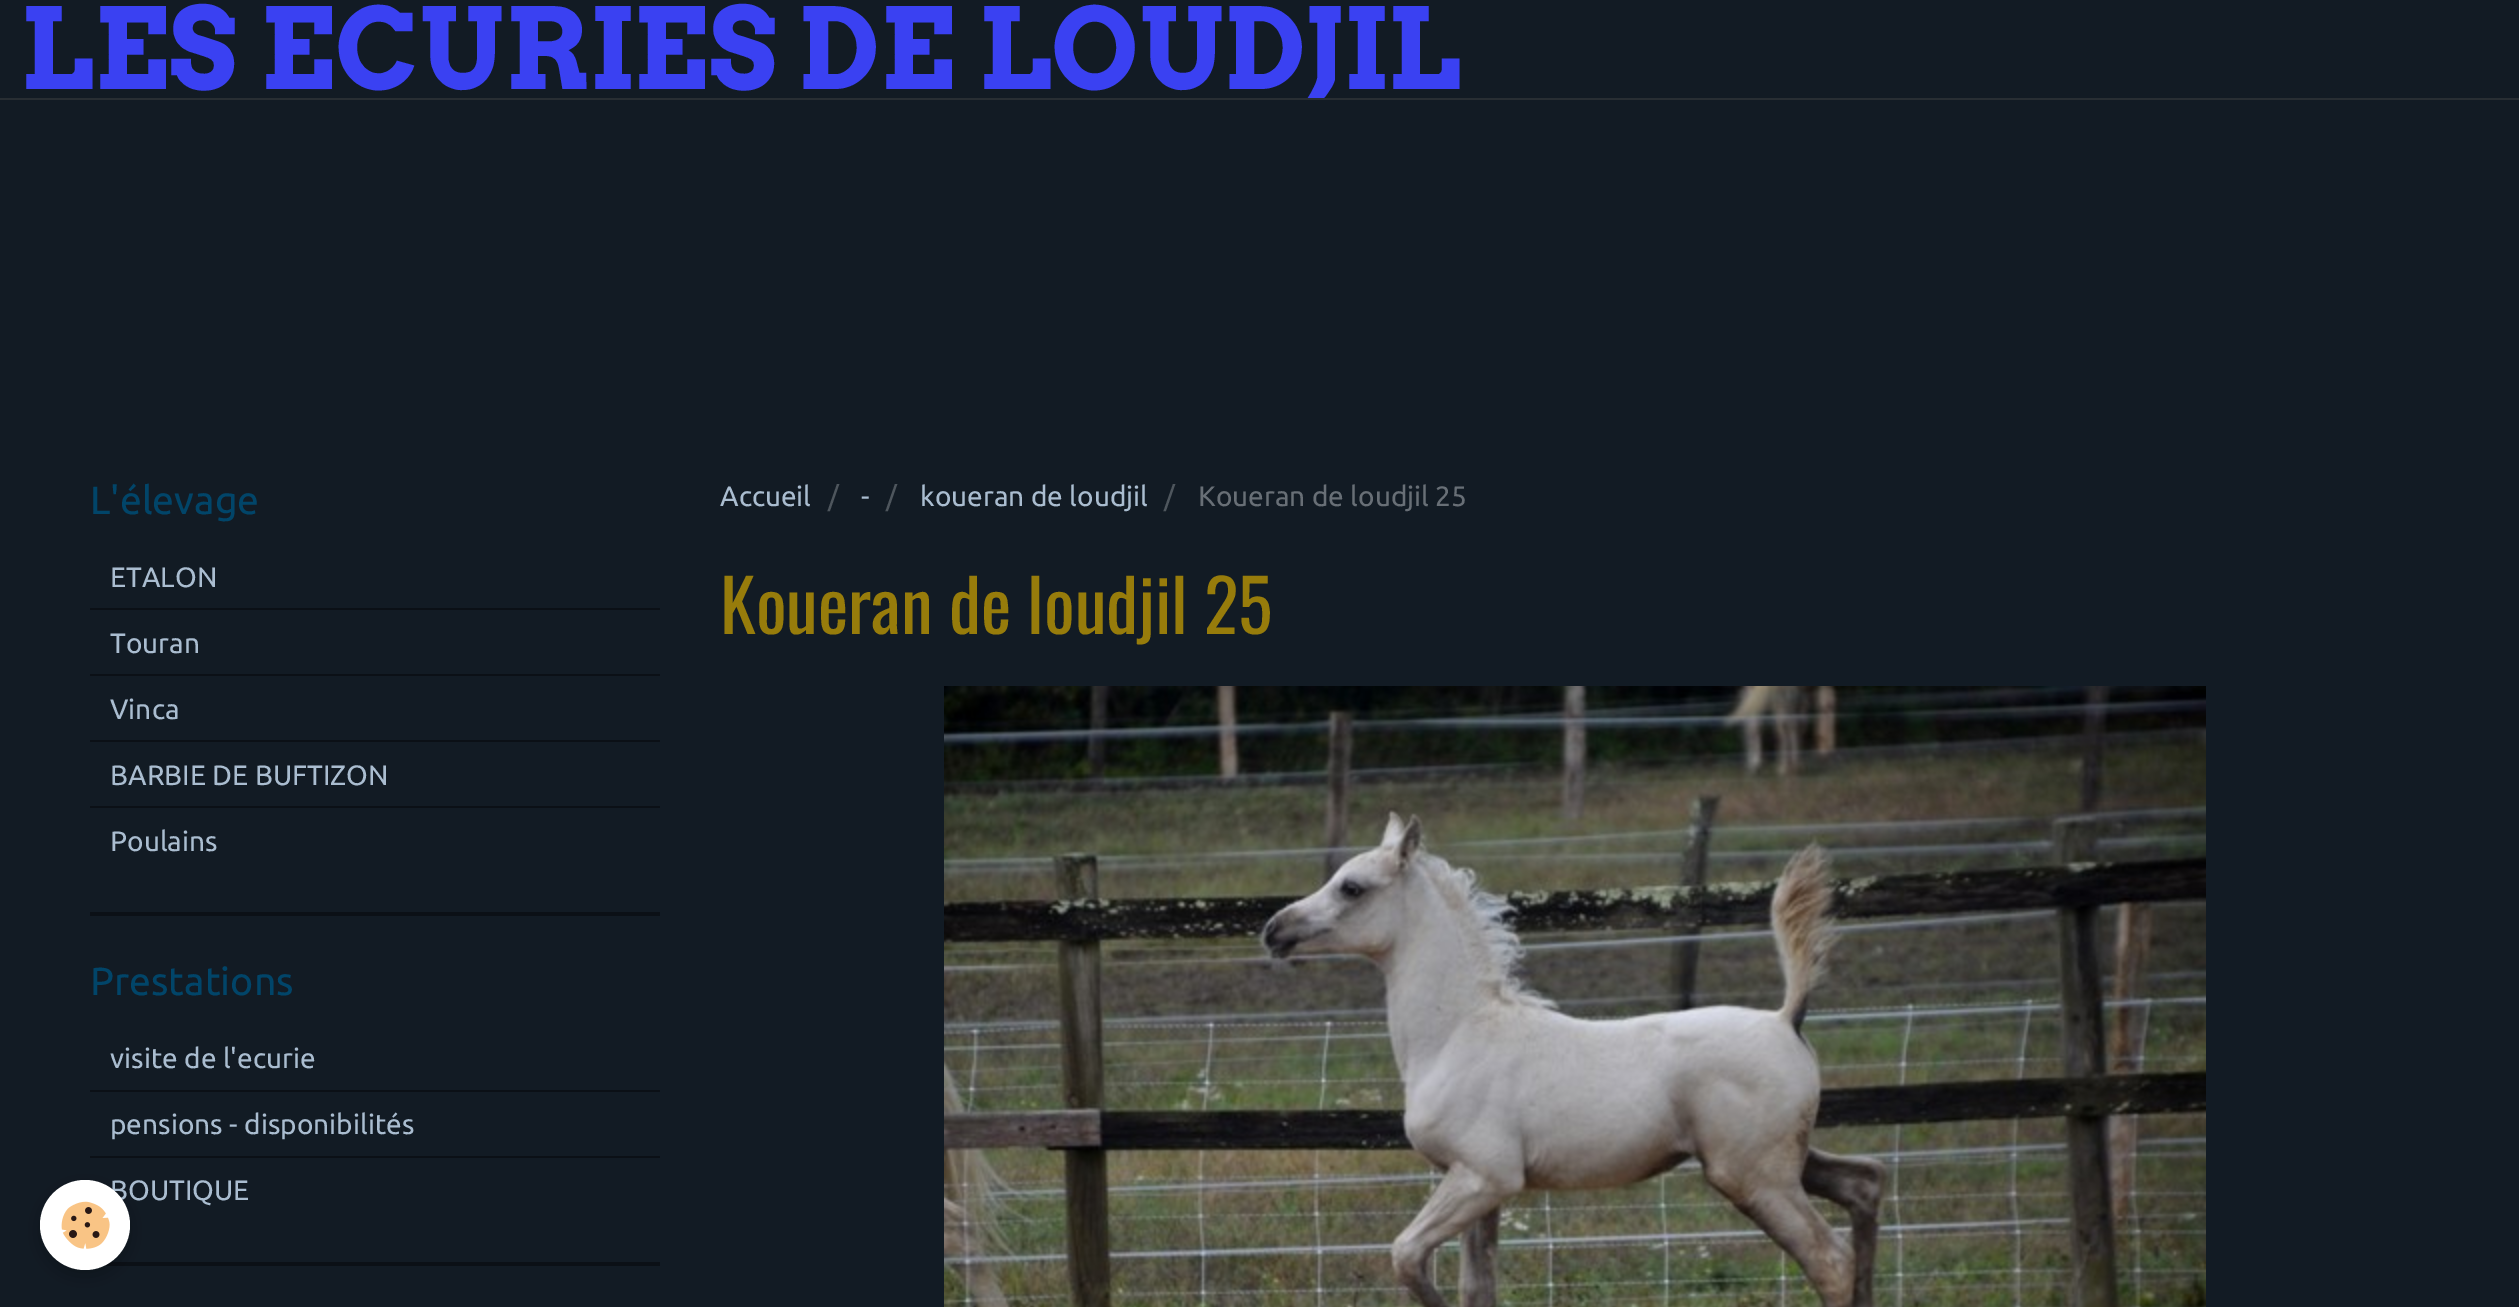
%!PS
<< /PageSize [2519 1307] /PageUsesTransparency true >> setpagedevice
/fl/fill load def
/gs/gsave load def
/gr/grestore load def
/co { dup -16 bitshift 255 div exch dup -8 bitshift 255 and 255 div exch 255 and 255 div setrgbcolor } def
/fn { [ exch dup neg 0 0 3 -1 roll 0 0 ] selectfont } def
/tx { co fn moveto show } def
/bx { co rectfill } def
/al { dup .setfillconstantalpha .setstrokeconstantalpha } def
/ci { newpath 0 360 arc closepath } def
/rr { 5 dict begin { /r /h /w /y /x } { exch def } forall
  x r add y moveto x w add y 2 copy h add r arct x w add y h add x 1 index r arct
  x y h add x y r arct x y 2 copy exch w add exch r arct closepath end } def
/sh { 12 dict begin { /a /b /q /h /w /y /x } { exch def } forall gsave /was 0 def
  9 -2 -9 { dup b mul 4 div /e exch def 1 sub .425 mul 2.718 exch exp 1 add a .99 .min exch div /now exch def
    1 1 now sub 1 was sub div sub al /was now def
    w h .min e 2 mul add 0 gt { x e sub y e sub w e 2 mul add h e 2 mul add
      q e add b .6 mul add w h .min 2 div e add .min 0 .max rr fill } if } for grestore end } def
/im { 5 dict begin { /h /w /y /x /name } { exch def } forall
  gsave x y translate w h scale
  w h 8 [w 0 0 h 0 0] name (r) file false 3 colorimage grestore end } def
0 .pushpdf14devicefilter
0 1307 translate 1 -1 scale
4 setmiterlimit
0 0 2519 1307 16#121B24 bx
0 98 2519 2 16#282E33 bx
90 912 570 4 16#0B1016 bx
90 608 570 2 16#0B1016 bx
90 674 570 2 16#0B1016 bx
90 740 570 2 16#0B1016 bx
90 806 570 2 16#0B1016 bx
103 1262 557 4 16#0B1016 bx
90 1090 570 2 16#0B1016 bx
90 1156 570 2 16#0B1016 bx
(media/1.raw) 944 686 1262 621 im
16#000000 co
40 1186 90 90 45 10 .24 sh
gs
20 0 1440 98 rectclip
(LES ECURIES DE LOUDJIL) 20 89 /Arvo-Bold 112 16#3A41F2 tx
gr
(L'élevage) 90 514 /Ubuntu-Regular 39.25 16#014569 tx
(ETALON) 110 587 /Ubuntu-Regular 28 16#AABDD0 tx
(Touran) 110 653 /Ubuntu-Regular 28 16#AABDD0 tx
(Vinca) 110 719 /Ubuntu-Regular 28 16#AABDD0 tx
(BARBIE DE BUFTIZON) 110 785 /Ubuntu-Regular 28 16#AABDD0 tx
(Poulains) 110 851 /Ubuntu-Regular 28 16#AABDD0 tx
(Prestations) 90 995 /Ubuntu-Regular 39.25 16#014569 tx
(visite de l'ecurie) 110 1068 /Ubuntu-Regular 28 16#AABDD0 tx
(pensions - disponibilités) 110 1134 /Ubuntu-Regular 28 16#AABDD0 tx
(BOUTIQUE) 110 1200 /Ubuntu-Regular 28 16#AABDD0 tx
(Accueil) 720 506 /Ubuntu-Regular 28 16#AABDD0 tx
(/) 828 506 /Ubuntu-Regular 28 16#4E565D tx
(-) 861 506 /Ubuntu-Regular 28 16#AABDD0 tx
(/) 886 506 /Ubuntu-Regular 28 16#4E565D tx
(koueran de loudjil) 920 506 /Ubuntu-Regular 28 16#AABDD0 tx
(/) 1164 506 /Ubuntu-Regular 28 16#4E565D tx
(Koueran de loudjil 25) 1198 506 /Ubuntu-Regular 28 16#686F76 tx
(Koueran de loudjil 25) 720 634 /Oswald-Regular 72 16#977C0B tx
16#FFFFFF co
85 1225 45 ci fl
(media/2.raw) 61 1201 49 48 im
.poppdf14devicefilter showpage
